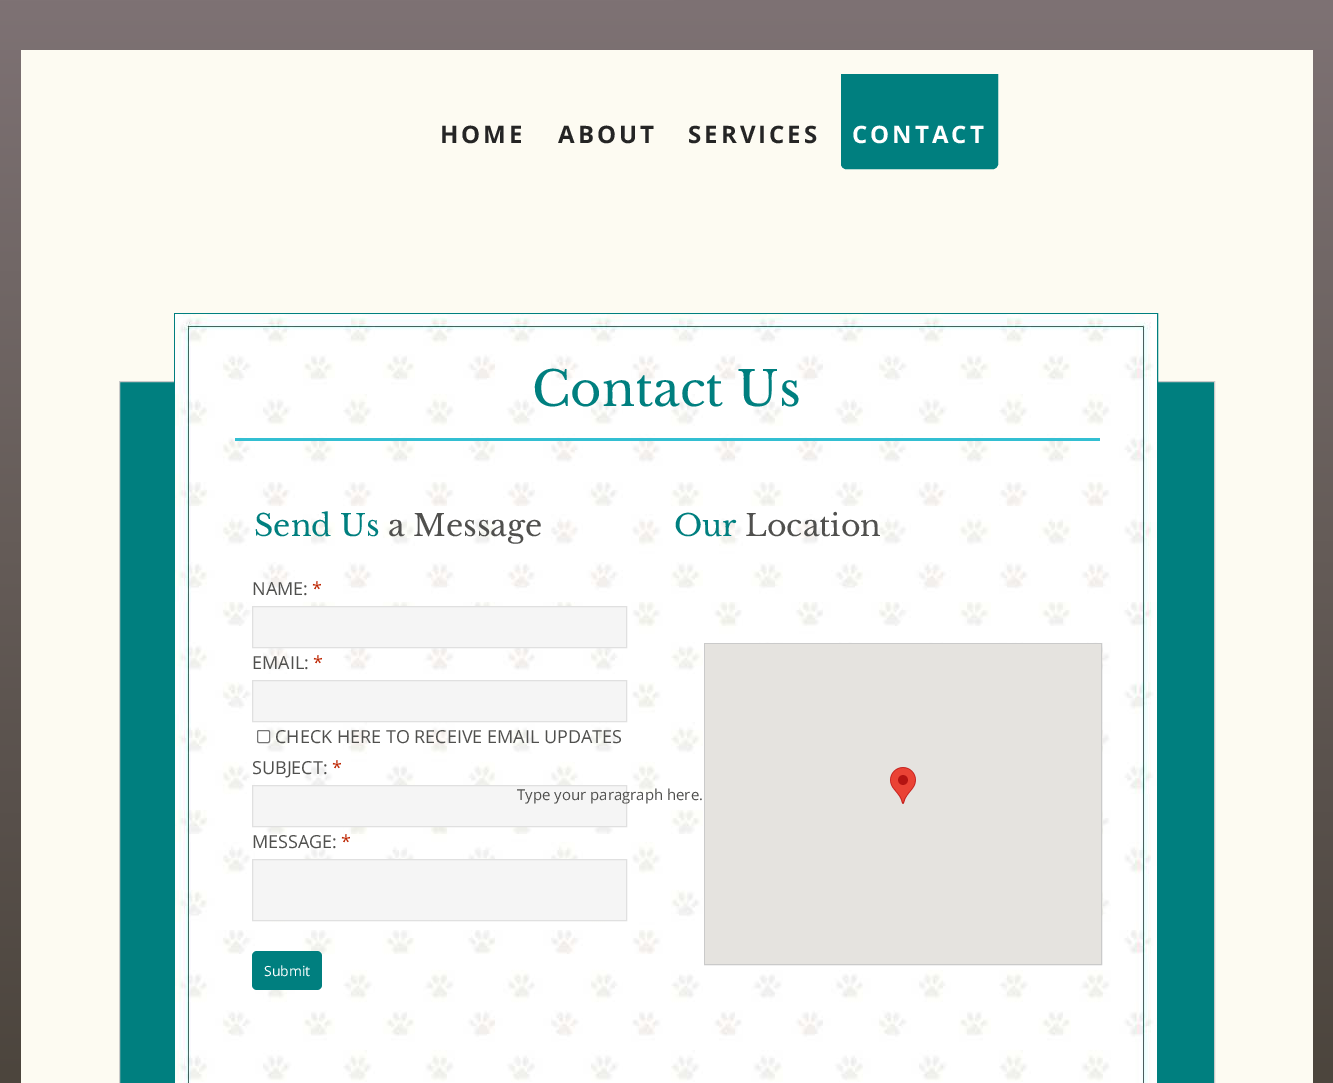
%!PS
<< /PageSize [1333 1083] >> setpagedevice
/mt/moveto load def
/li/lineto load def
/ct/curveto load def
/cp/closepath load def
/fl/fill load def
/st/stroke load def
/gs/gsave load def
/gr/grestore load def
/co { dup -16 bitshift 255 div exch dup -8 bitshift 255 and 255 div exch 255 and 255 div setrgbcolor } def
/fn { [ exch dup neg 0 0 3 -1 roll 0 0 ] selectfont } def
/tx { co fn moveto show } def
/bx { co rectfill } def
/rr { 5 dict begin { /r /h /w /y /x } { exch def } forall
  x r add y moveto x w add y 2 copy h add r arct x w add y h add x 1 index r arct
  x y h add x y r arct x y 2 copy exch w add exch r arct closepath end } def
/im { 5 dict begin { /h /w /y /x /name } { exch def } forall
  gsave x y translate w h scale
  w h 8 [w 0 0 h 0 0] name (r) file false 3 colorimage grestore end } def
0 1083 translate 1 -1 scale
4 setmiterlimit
0 0 1333 1083 16#FFFFFF bx
gs 0 0 mt 1333 0 li 1333 1083 li 0 1083 li cp clip newpath
<< /ShadingType 2 /ColorSpace /DeviceRGB /Coords [666 0 667 1083] /Extend [true true] /Function << /FunctionType 2 /Domain [0 1] /C0 [.494 .447 .455] /C1 [.298 .271 .239] /N 1 >> >> shfill gr
21 50 1292 1033 16#FDFBF2 bx
16#007F7F co
841.5 74.5 mt 997.5 74.5 li 997.5 164 li 997.5 166.5 995.5 168.5 993 168.5 ct 846 168.5 li 843.5 168.5 841.5 166.5 841.5 164 ct cp gs fl gr
st
119.5 381.5 mt 1214.5 381.5 li 1214.5 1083.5 li 119.5 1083.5 li cp gs fl gr
16#CACACA co
st
16#007F7F co
174.5 313.5 983 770 rectstroke
(media/1.raw) 175 314 982 769 im
235 438 865 3 16#33BFD2 bx
16#F5F5F5 co
252.5 606.5 mt 626.5 606.5 li 626.5 647.5 li 252.5 647.5 li cp gs fl gr
16#E0E0E0 co
st
16#F5F5F5 co
252.5 680.5 mt 626.5 680.5 li 626.5 721.5 li 252.5 721.5 li cp gs fl gr
16#E0E0E0 co
st
16#FFFFFF co
257.5 730.5 12 12 1.5 rr gs fl gr
16#767676 co
st
16#F5F5F5 co
252.5 785.5 mt 626.5 785.5 li 626.5 826.5 li 252.5 826.5 li cp gs fl gr
16#E0E0E0 co
st
16#F5F5F5 co
252.5 859.5 mt 626.5 859.5 li 626.5 920.5 li 252.5 920.5 li cp gs fl gr
16#E0E0E0 co
st
16#007F7F co
252 951 70 39 5 rr fl
16#CACACA co
704.5 643.5 397 321 rectstroke
705 644 396 320 16#E5E3DF bx
(media/2.raw) 890 767 26 37 im
/OpenSans-Bold 24 fn
16#252525 co
440 143 mt 3 0 (HOME) ashow
558 143 mt 3 0 (ABOUT) ashow
688 143 mt 3 0 (SERVICES) ashow
16#FFFFFF co
852 143 mt 3 0 (CONTACT) ashow
(Contact Us) 532 406 /LibreBaskerville-Regular 48 16#007F7F tx
(Send Us) 254 536 /LibreBaskerville-Regular 30 16#007F7F tx
(a Message) 388 536 /LibreBaskerville-Regular 30 16#50504E tx
(Our) 674 536 /LibreBaskerville-Regular 30 16#007F7F tx
(Location) 745 536 /LibreBaskerville-Regular 30 16#50504E tx
(NAME:) 252 595 /OpenSans-Regular 18 16#50504E tx
(*) 312 595 /OpenSans-Regular 18 16#BE2602 tx
(EMAIL:) 252 669 /OpenSans-Regular 18 16#50504E tx
(*) 313 669 /OpenSans-Regular 18 16#BE2602 tx
(CHECK HERE TO RECEIVE EMAIL UPDATES) 275 743 /OpenSans-Regular 18 16#50504E tx
(SUBJECT:) 252 774 /OpenSans-Regular 18 16#50504E tx
(*) 332 774 /OpenSans-Regular 18 16#BE2602 tx
(MESSAGE:) 252 848 /OpenSans-Regular 18 16#50504E tx
(*) 341 848 /OpenSans-Regular 18 16#BE2602 tx
(Submit) 264 976 /OpenSans-Regular 14 16#FFFFFF tx
(Type your paragraph here.) 517 800 /OpenSans-Regular 15 16#50504E tx
showpage
